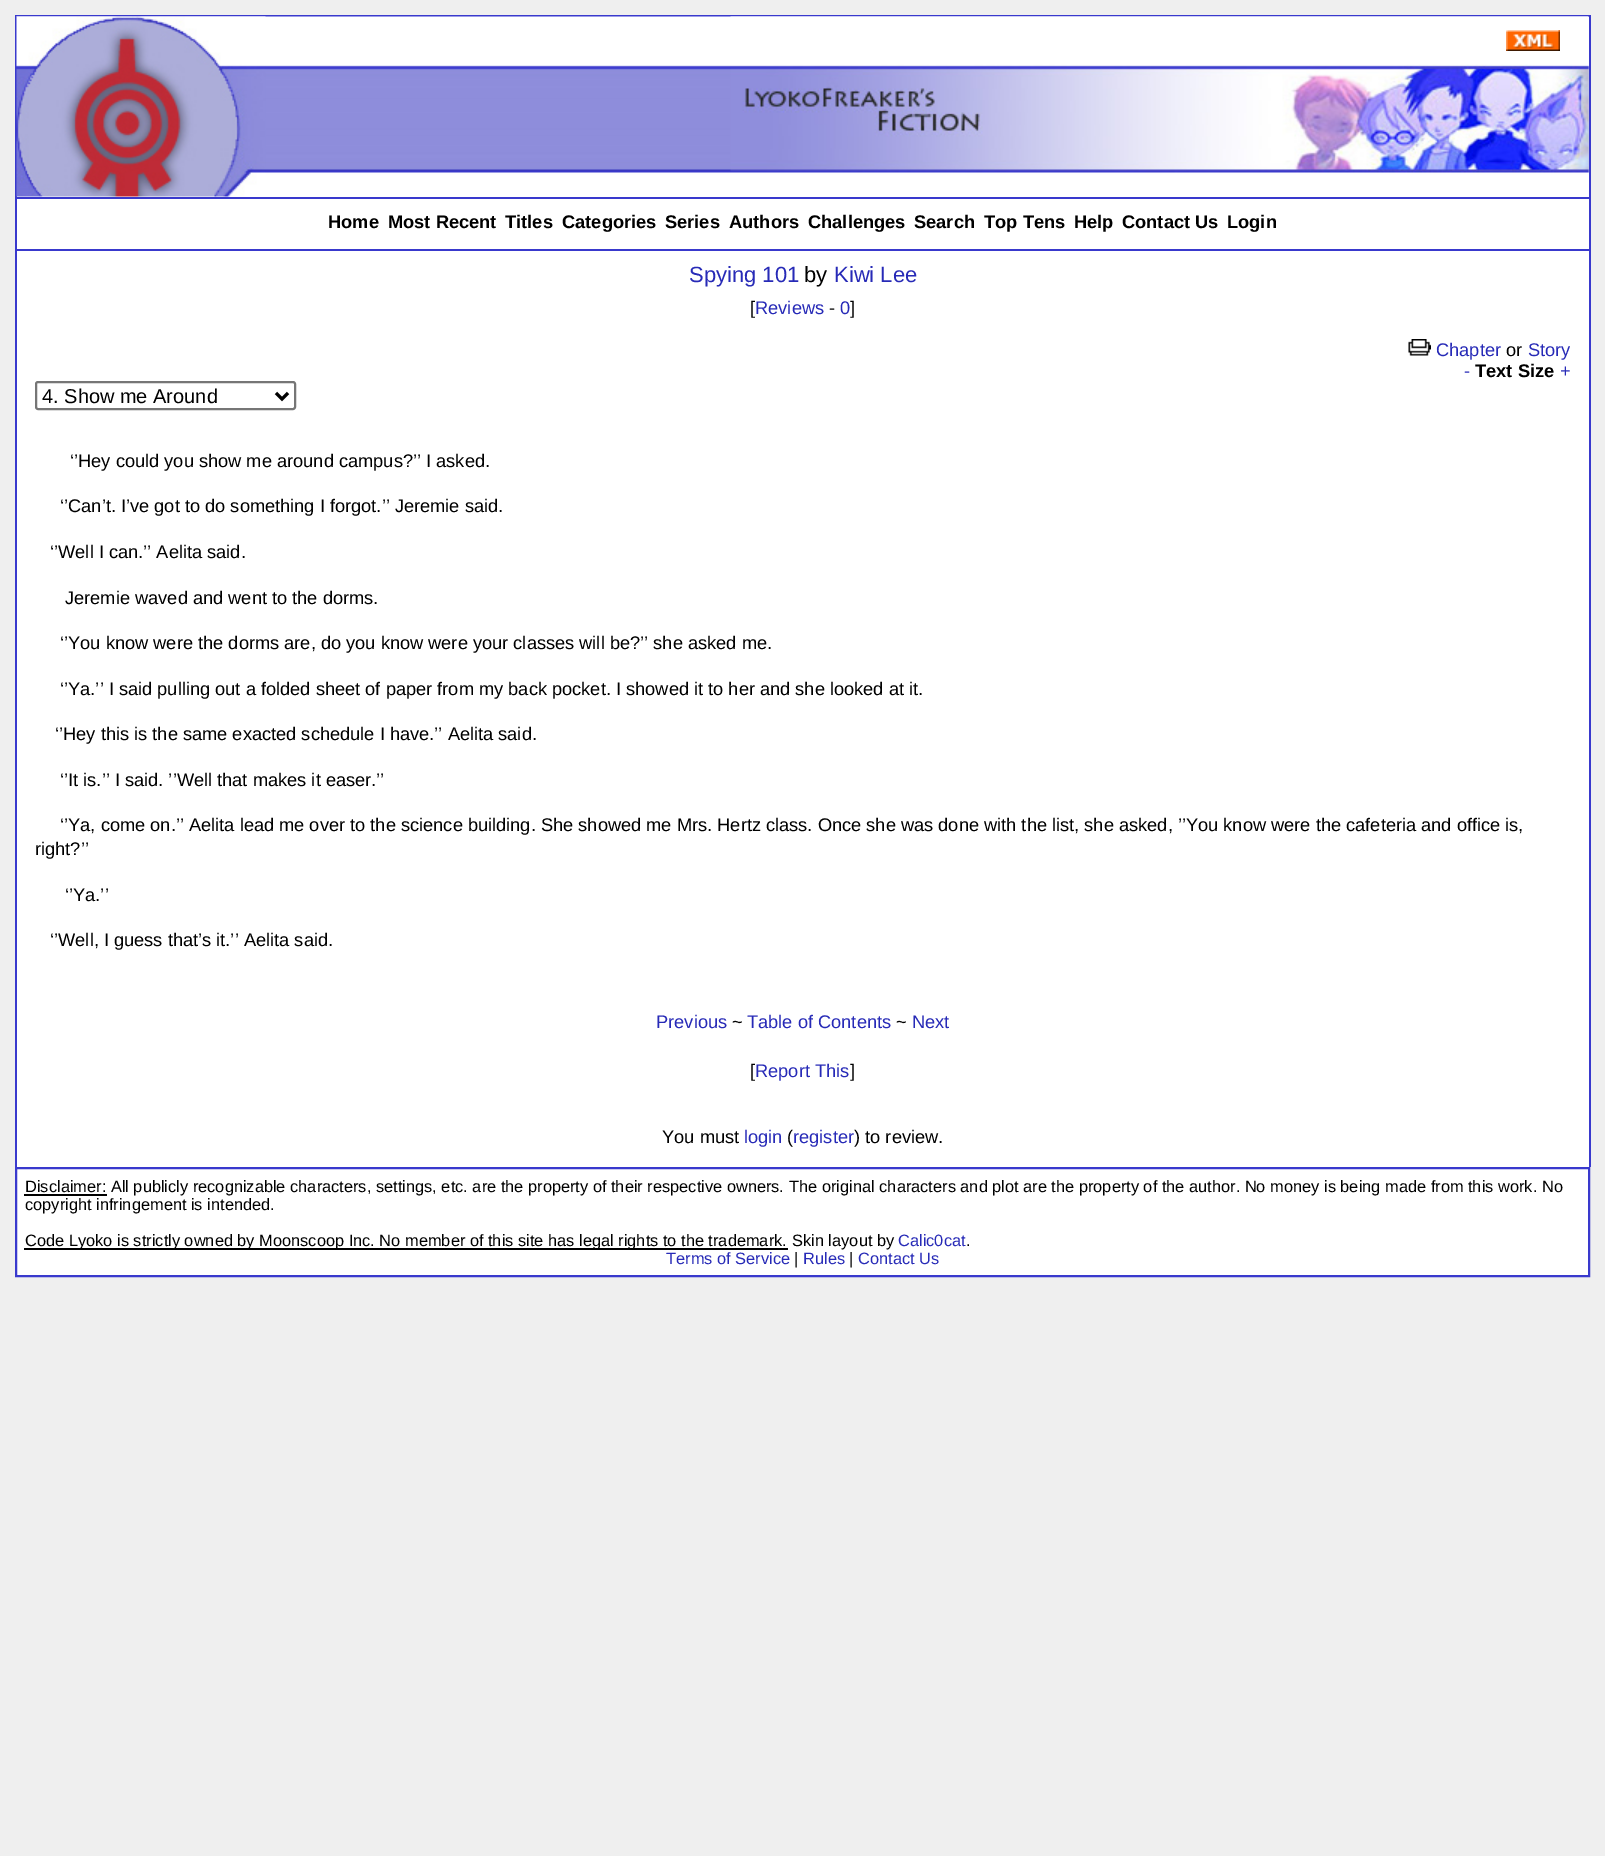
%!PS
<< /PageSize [1605 1856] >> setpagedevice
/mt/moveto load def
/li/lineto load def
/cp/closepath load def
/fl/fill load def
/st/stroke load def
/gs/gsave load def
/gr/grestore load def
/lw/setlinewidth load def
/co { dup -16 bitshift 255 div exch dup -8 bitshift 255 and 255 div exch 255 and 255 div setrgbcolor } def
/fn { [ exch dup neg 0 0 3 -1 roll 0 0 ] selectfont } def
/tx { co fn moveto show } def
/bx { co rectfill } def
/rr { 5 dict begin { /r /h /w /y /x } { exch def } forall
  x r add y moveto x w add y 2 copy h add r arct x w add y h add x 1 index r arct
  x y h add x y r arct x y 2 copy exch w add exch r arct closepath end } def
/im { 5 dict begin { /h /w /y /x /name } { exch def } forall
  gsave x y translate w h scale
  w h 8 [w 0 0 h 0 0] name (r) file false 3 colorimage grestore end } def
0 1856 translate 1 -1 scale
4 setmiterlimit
0 0 1605 1856 16#EFEFEF bx
17 17 1572 232 16#FFFFFF bx
15 15 1575 2 16#3939CD bx
1589 15 2 234 16#3939CD bx
15 15 2 234 16#3939CD bx
(media/1.raw) 16 16 1573 181 im
16 17 1 180 16#3939CD bx
(media/2.raw) 16 16 250 181 im
(media/3.raw) 730 16 859 157 im
(media/4.raw) 1506 30 54 21 im
17 197 1572 2 16#3939CD bx
17 251 1572 916 16#FFFFFF bx
15 249 1575 2 16#3939CD bx
1589 249 2 918 16#3939CD bx
15 249 2 918 16#3939CD bx
(media/5.raw) 1408 339 23 17 im
16#767676 co
2 lw
36 382 259 27 2 rr st
16#000000 co
3 lw
276 393 mt 282 399 li 288 393 li st
16#FFFFFF co
16 1168 mt 1589 1168 li 1589 1276 li 16 1276 li cp gs fl gr
16#3939CD co
2 lw
st
24 1194 83 2 16#000000 bx
24 1248 764 2 16#000000 bx
(Home) 328 228 /LiberationSans-Bold 18.25 16#000000 tx
(Most Recent) 388 228 /LiberationSans-Bold 18.25 16#000000 tx
(Titles) 505 228 /LiberationSans-Bold 18.25 16#000000 tx
(Categories) 562 228 /LiberationSans-Bold 18.25 16#000000 tx
(Series) 665 228 /LiberationSans-Bold 18.25 16#000000 tx
(Authors) 729 228 /LiberationSans-Bold 18.25 16#000000 tx
(Challenges) 808 228 /LiberationSans-Bold 18.25 16#000000 tx
(Search) 914 228 /LiberationSans-Bold 18.25 16#000000 tx
(Top Tens) 984 228 /LiberationSans-Bold 18.25 16#000000 tx
(Help) 1074 228 /LiberationSans-Bold 18.25 16#000000 tx
(Contact Us) 1122 228 /LiberationSans-Bold 18.25 16#000000 tx
(Login) 1227 228 /LiberationSans-Bold 18.25 16#000000 tx
(Spying 101) 689 282 /LiberationSans-Regular 22 16#272AB7 tx
(by) 804 282 /LiberationSans-Regular 22 16#000000 tx
(Kiwi Lee) 834 282 /LiberationSans-Regular 22 16#272AB7 tx
([) 750 314 /LiberationSans-Regular 18.25 16#000000 tx
(Reviews) 755 314 /LiberationSans-Regular 18.25 16#272AB7 tx
(-) 829 314 /LiberationSans-Regular 18.25 16#000000 tx
(0) 840 314 /LiberationSans-Regular 18.25 16#272AB7 tx
(]) 850 314 /LiberationSans-Regular 18.25 16#000000 tx
(Chapter) 1436 356 /LiberationSans-Regular 18.25 16#272AB7 tx
(or) 1506 356 /LiberationSans-Regular 18.25 16#000000 tx
(Story) 1528 356 /LiberationSans-Regular 18.25 16#272AB7 tx
(-) 1464 377 /LiberationSans-Regular 18.25 16#272AB7 tx
(Text Size) 1475 377 /LiberationSans-Bold 18.25 16#000000 tx
(+) 1560 377 /LiberationSans-Regular 18.25 16#272AB7 tx
(4. Show me Around) 42 403 /LiberationSans-Regular 20 16#000000 tx
(‘’Hey could you show me around campus?’’ I asked.) 70 467 /LiberationSans-Regular 18.25 16#000000 tx
(‘’Can’t. I’ve got to do something I forgot.’’ Jeremie said.) 60 512 /LiberationSans-Regular 18.25 16#000000 tx
(‘’Well I can.’’ Aelita said.) 50 558 /LiberationSans-Regular 18.25 16#000000 tx
(Jeremie waved and went to the dorms.) 65 604 /LiberationSans-Regular 18.25 16#000000 tx
(‘’You know were the dorms are, do you know were your classes will be?’’ she asked me.) 60 649 /LiberationSans-Regular 18.25 16#000000 tx
(‘’Ya.’’ I said pulling out a folded sheet of paper from my back pocket. I showed it to her and she looked at it.) 60 695 /LiberationSans-Regular 18.25 16#000000 tx
(‘’Hey this is the same exacted schedule I have.’’ Aelita said.) 55 740 /LiberationSans-Regular 18.25 16#000000 tx
(‘’It is.’’ I said. ’’Well that makes it easer.’’) 60 786 /LiberationSans-Regular 18.25 16#000000 tx
(‘’Ya, come on.’’ Aelita lead me over to the science building. She showed me Mrs. Hertz class. Once she was done with the list, she asked, ’’You know were the cafeteria and office is,) 60 831 /LiberationSans-Regular 18.25 16#000000 tx
(right?’’) 35 855 /LiberationSans-Regular 18.25 16#000000 tx
(‘’Ya.’’) 65 901 /LiberationSans-Regular 18.25 16#000000 tx
(‘’Well, I guess that’s it.’’ Aelita said.) 50 946 /LiberationSans-Regular 18.25 16#000000 tx
(Previous) 656 1028 /LiberationSans-Regular 18.25 16#272AB7 tx
(~) 732 1028 /LiberationSans-Regular 18.25 16#000000 tx
(Table of Contents) 747 1028 /LiberationSans-Regular 18.25 16#272AB7 tx
(~) 896 1028 /LiberationSans-Regular 18.25 16#000000 tx
(Next) 912 1028 /LiberationSans-Regular 18.25 16#272AB7 tx
([) 750 1077 /LiberationSans-Regular 18.25 16#000000 tx
(Report This) 755 1077 /LiberationSans-Regular 18.25 16#272AB7 tx
(]) 850 1077 /LiberationSans-Regular 18.25 16#000000 tx
(You must) 662 1143 /LiberationSans-Regular 18.25 16#000000 tx
(login) 744 1143 /LiberationSans-Regular 18.25 16#272AB7 tx
(\() 787 1143 /LiberationSans-Regular 18.25 16#000000 tx
(register) 793 1143 /LiberationSans-Regular 18.25 16#272AB7 tx
(\) to review.) 854 1143 /LiberationSans-Regular 18.25 16#000000 tx
(Disclaimer: All publicly recognizable characters, settings, etc. are the property of their respective owners.) 25 1192 /LiberationSans-Regular 16.4 16#000000 tx
(The original characters and plot are the property of the author. No money is being made from this work. No) 789 1192 /LiberationSans-Regular 16.4 16#000000 tx
(copyright infringement is intended.) 25 1210 /LiberationSans-Regular 16.4 16#000000 tx
(Code Lyoko is strictly owned by Moonscoop Inc. No member of this site has legal rights to the trademark.) 25 1246 /LiberationSans-Regular 16.4 16#000000 tx
(Skin layout by) 792 1246 /LiberationSans-Regular 16.4 16#000000 tx
(Calic0cat) 898 1246 /LiberationSans-Regular 16.4 16#272AB7 tx
(.) 966 1246 /LiberationSans-Regular 16.4 16#000000 tx
(Terms of Service) 666 1264 /LiberationSans-Regular 16.4 16#272AB7 tx
(|) 794 1264 /LiberationSans-Regular 16.4 16#000000 tx
(Rules) 803 1264 /LiberationSans-Regular 16.4 16#272AB7 tx
(|) 849 1264 /LiberationSans-Regular 16.4 16#000000 tx
(Contact Us) 858 1264 /LiberationSans-Regular 16.4 16#272AB7 tx
showpage
